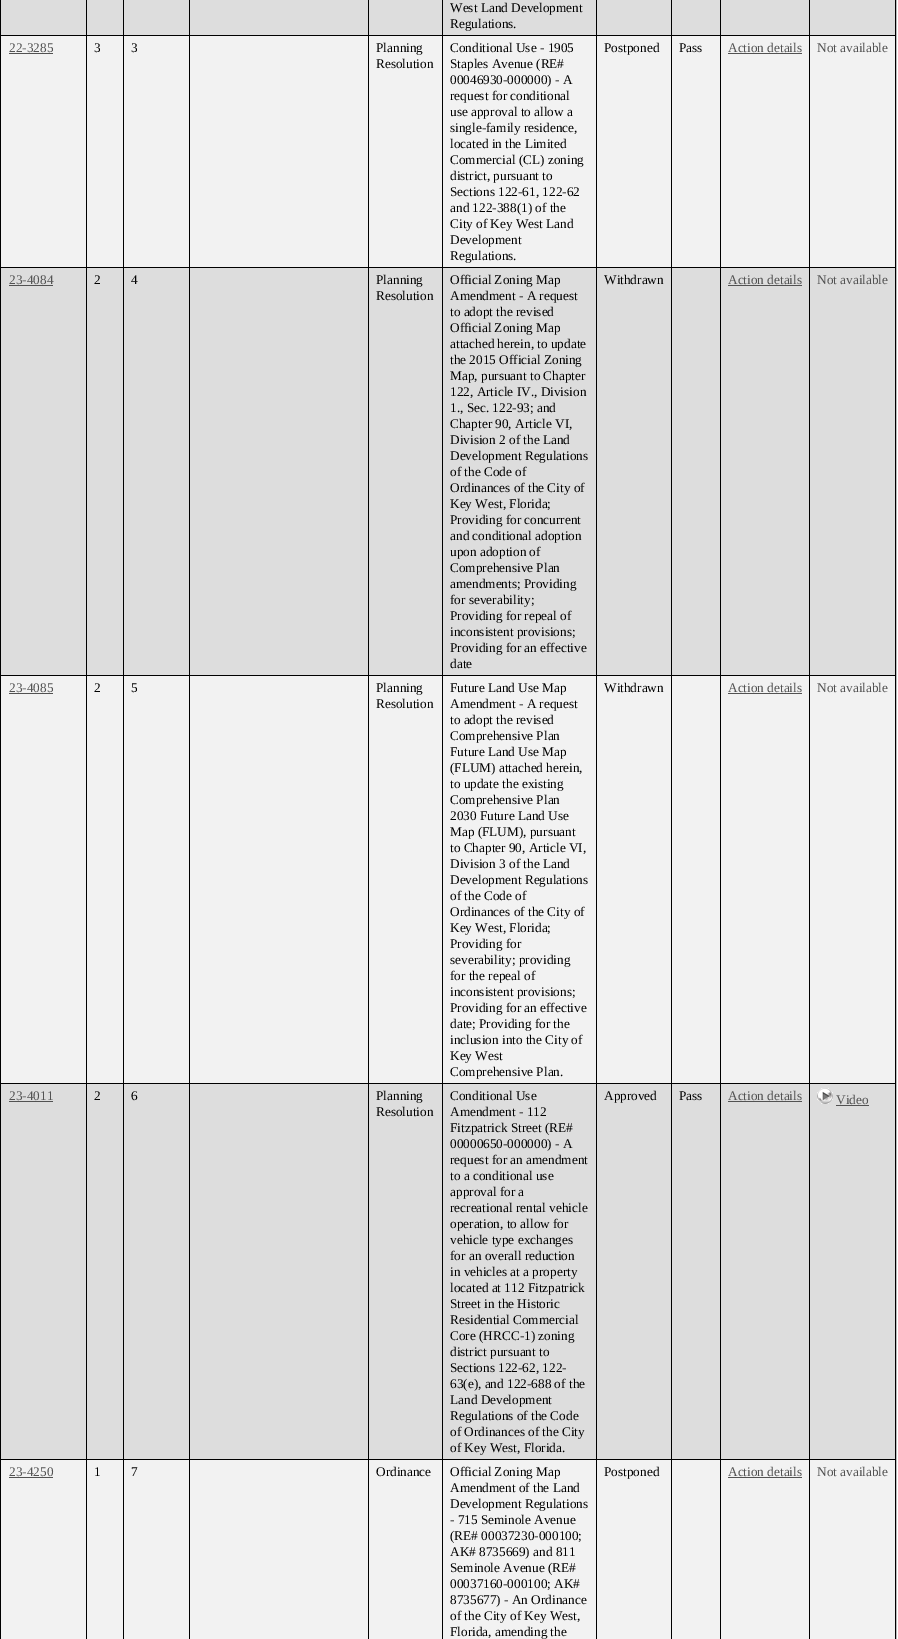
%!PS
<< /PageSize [898 1639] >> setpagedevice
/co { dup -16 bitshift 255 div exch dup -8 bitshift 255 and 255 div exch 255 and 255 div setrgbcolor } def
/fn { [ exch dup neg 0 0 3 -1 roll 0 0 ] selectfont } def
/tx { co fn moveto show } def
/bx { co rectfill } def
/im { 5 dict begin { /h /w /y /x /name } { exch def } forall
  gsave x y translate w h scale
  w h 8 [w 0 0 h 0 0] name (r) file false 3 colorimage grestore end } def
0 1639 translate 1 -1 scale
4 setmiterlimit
0 0 898 1639 16#FFFFFF bx
16#000000 co
.5 -.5 895 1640 rectstroke
1 0 85 35 16#DDDDDD bx
1 35 894 1 16#000000 bx
87 0 36 35 16#DDDDDD bx
86 0 1 36 16#000000 bx
124 0 65 35 16#DDDDDD bx
123 0 1 36 16#000000 bx
190 0 178 35 16#DDDDDD bx
189 0 1 36 16#000000 bx
369 0 73 35 16#DDDDDD bx
368 0 1 36 16#000000 bx
443 0 153 35 16#DDDDDD bx
442 0 1 36 16#000000 bx
597 0 74 35 16#DDDDDD bx
596 0 1 36 16#000000 bx
672 0 48 35 16#DDDDDD bx
671 0 1 36 16#000000 bx
721 0 88 35 16#DDDDDD bx
720 0 1 36 16#000000 bx
810 0 85 35 16#DDDDDD bx
809 0 1 36 16#000000 bx
1 36 85 231 16#F2F2F2 bx
1 267 894 1 16#000000 bx
9 53 44 1 16#525252 bx
87 36 36 231 16#F2F2F2 bx
86 36 1 232 16#000000 bx
124 36 65 231 16#F2F2F2 bx
123 36 1 232 16#000000 bx
190 36 178 231 16#F2F2F2 bx
189 36 1 232 16#000000 bx
369 36 73 231 16#F2F2F2 bx
368 36 1 232 16#000000 bx
443 36 153 231 16#F2F2F2 bx
442 36 1 232 16#000000 bx
597 36 74 231 16#F2F2F2 bx
596 36 1 232 16#000000 bx
672 36 48 231 16#F2F2F2 bx
671 36 1 232 16#000000 bx
721 36 88 231 16#F2F2F2 bx
720 36 1 232 16#000000 bx
728 53 74 1 16#525252 bx
810 36 85 231 16#F2F2F2 bx
809 36 1 232 16#000000 bx
1 268 85 407 16#DDDDDD bx
1 675 894 1 16#000000 bx
9 285 44 1 16#525252 bx
87 268 36 407 16#DDDDDD bx
86 268 1 408 16#000000 bx
124 268 65 407 16#DDDDDD bx
123 268 1 408 16#000000 bx
190 268 178 407 16#DDDDDD bx
189 268 1 408 16#000000 bx
369 268 73 407 16#DDDDDD bx
368 268 1 408 16#000000 bx
443 268 153 407 16#DDDDDD bx
442 268 1 408 16#000000 bx
597 268 74 407 16#DDDDDD bx
596 268 1 408 16#000000 bx
672 268 48 407 16#DDDDDD bx
671 268 1 408 16#000000 bx
721 268 88 407 16#DDDDDD bx
720 268 1 408 16#000000 bx
728 285 74 1 16#525252 bx
810 268 85 407 16#DDDDDD bx
809 268 1 408 16#000000 bx
1 676 85 407 16#F2F2F2 bx
1 1083 894 1 16#000000 bx
9 693 44 1 16#525252 bx
87 676 36 407 16#F2F2F2 bx
86 676 1 408 16#000000 bx
124 676 65 407 16#F2F2F2 bx
123 676 1 408 16#000000 bx
190 676 178 407 16#F2F2F2 bx
189 676 1 408 16#000000 bx
369 676 73 407 16#F2F2F2 bx
368 676 1 408 16#000000 bx
443 676 153 407 16#F2F2F2 bx
442 676 1 408 16#000000 bx
597 676 74 407 16#F2F2F2 bx
596 676 1 408 16#000000 bx
672 676 48 407 16#F2F2F2 bx
671 676 1 408 16#000000 bx
721 676 88 407 16#F2F2F2 bx
720 676 1 408 16#000000 bx
728 693 74 1 16#525252 bx
810 676 85 407 16#F2F2F2 bx
809 676 1 408 16#000000 bx
1 1084 85 375 16#DDDDDD bx
1 1459 894 1 16#000000 bx
9 1101 44 1 16#525252 bx
87 1084 36 375 16#DDDDDD bx
86 1084 1 555 16#000000 bx
124 1084 65 375 16#DDDDDD bx
123 1084 1 555 16#000000 bx
190 1084 178 375 16#DDDDDD bx
189 1084 1 555 16#000000 bx
369 1084 73 375 16#DDDDDD bx
368 1084 1 555 16#000000 bx
443 1084 153 375 16#DDDDDD bx
442 1084 1 555 16#000000 bx
597 1084 74 375 16#DDDDDD bx
596 1084 1 555 16#000000 bx
672 1084 48 375 16#DDDDDD bx
671 1084 1 555 16#000000 bx
721 1084 88 375 16#DDDDDD bx
720 1084 1 555 16#000000 bx
728 1101 74 1 16#525252 bx
810 1084 85 375 16#DDDDDD bx
809 1084 1 555 16#000000 bx
(media/1.raw) 817 1088 16 16 im
836 1105 33 1 16#525252 bx
1 1460 85 179 16#F2F2F2 bx
9 1477 44 1 16#525252 bx
87 1460 36 179 16#F2F2F2 bx
124 1460 65 179 16#F2F2F2 bx
190 1460 178 179 16#F2F2F2 bx
369 1460 73 179 16#F2F2F2 bx
443 1460 153 179 16#F2F2F2 bx
597 1460 74 179 16#F2F2F2 bx
672 1460 48 179 16#F2F2F2 bx
721 1460 88 179 16#F2F2F2 bx
728 1477 74 1 16#525252 bx
810 1460 85 179 16#F2F2F2 bx
(West Land Development) 450 12 /LiberationSerif-Regular 13.25 16#000000 tx
(Regulations.) 450 28 /LiberationSerif-Regular 13.25 16#000000 tx
(22-3285) 9 52 /LiberationSerif-Regular 13.25 16#525252 tx
(3) 94 52 /LiberationSerif-Regular 13.25 16#000000 tx
(3) 131 52 /LiberationSerif-Regular 13.25 16#000000 tx
(Planning) 376 52 /LiberationSerif-Regular 13.25 16#000000 tx
(Resolution) 376 68 /LiberationSerif-Regular 13.25 16#000000 tx
(Conditional Use - 1905) 450 52 /LiberationSerif-Regular 13.25 16#000000 tx
(Staples Avenue \(RE#) 450 68 /LiberationSerif-Regular 13.25 16#000000 tx
(00046930-000000\) - A) 450 84 /LiberationSerif-Regular 13.25 16#000000 tx
(request for conditional) 450 100 /LiberationSerif-Regular 13.25 16#000000 tx
(use approval to allow a) 450 116 /LiberationSerif-Regular 13.25 16#000000 tx
(single-family residence,) 450 132 /LiberationSerif-Regular 13.25 16#000000 tx
(located in the Limited) 450 148 /LiberationSerif-Regular 13.25 16#000000 tx
(Commercial \(CL\) zoning) 450 164 /LiberationSerif-Regular 13.25 16#000000 tx
(district, pursuant to) 450 180 /LiberationSerif-Regular 13.25 16#000000 tx
(Sections 122-61, 122-62) 450 196 /LiberationSerif-Regular 13.25 16#000000 tx
(and 122-388\(1\) of the) 450 212 /LiberationSerif-Regular 13.25 16#000000 tx
(City of Key West Land) 450 228 /LiberationSerif-Regular 13.25 16#000000 tx
(Development) 450 244 /LiberationSerif-Regular 13.25 16#000000 tx
(Regulations.) 450 260 /LiberationSerif-Regular 13.25 16#000000 tx
(Postponed) 604 52 /LiberationSerif-Regular 13.25 16#000000 tx
(Pass) 679 52 /LiberationSerif-Regular 13.25 16#000000 tx
(Action details) 728 52 /LiberationSerif-Regular 13.25 16#525252 tx
(Not available) 817 52 /LiberationSerif-Regular 13.25 16#525252 tx
(23-4084) 9 284 /LiberationSerif-Regular 13.25 16#525252 tx
(2) 94 284 /LiberationSerif-Regular 13.25 16#000000 tx
(4) 131 284 /LiberationSerif-Regular 13.25 16#000000 tx
(Planning) 376 284 /LiberationSerif-Regular 13.25 16#000000 tx
(Resolution) 376 300 /LiberationSerif-Regular 13.25 16#000000 tx
(Official Zoning Map) 450 284 /LiberationSerif-Regular 13.25 16#000000 tx
(Amendment - A request) 450 300 /LiberationSerif-Regular 13.25 16#000000 tx
(to adopt the revised) 450 316 /LiberationSerif-Regular 13.25 16#000000 tx
(Official Zoning Map) 450 332 /LiberationSerif-Regular 13.25 16#000000 tx
(attached herein, to update) 450 348 /LiberationSerif-Regular 13.25 16#000000 tx
(the 2015 Official Zoning) 450 364 /LiberationSerif-Regular 13.25 16#000000 tx
(Map, pursuant to Chapter) 450 380 /LiberationSerif-Regular 13.25 16#000000 tx
(122, Article IV., Division) 450 396 /LiberationSerif-Regular 13.25 16#000000 tx
(1., Sec. 122-93; and) 450 412 /LiberationSerif-Regular 13.25 16#000000 tx
(Chapter 90, Article VI,) 450 428 /LiberationSerif-Regular 13.25 16#000000 tx
(Division 2 of the Land) 450 444 /LiberationSerif-Regular 13.25 16#000000 tx
(Development Regulations) 450 460 /LiberationSerif-Regular 13.25 16#000000 tx
(of the Code of) 450 476 /LiberationSerif-Regular 13.25 16#000000 tx
(Ordinances of the City of) 450 492 /LiberationSerif-Regular 13.25 16#000000 tx
(Key West, Florida;) 450 508 /LiberationSerif-Regular 13.25 16#000000 tx
(Providing for concurrent) 450 524 /LiberationSerif-Regular 13.25 16#000000 tx
(and conditional adoption) 450 540 /LiberationSerif-Regular 13.25 16#000000 tx
(upon adoption of) 450 556 /LiberationSerif-Regular 13.25 16#000000 tx
(Comprehensive Plan) 450 572 /LiberationSerif-Regular 13.25 16#000000 tx
(amendments; Providing) 450 588 /LiberationSerif-Regular 13.25 16#000000 tx
(for severability;) 450 604 /LiberationSerif-Regular 13.25 16#000000 tx
(Providing for repeal of) 450 620 /LiberationSerif-Regular 13.25 16#000000 tx
(inconsistent provisions;) 450 636 /LiberationSerif-Regular 13.25 16#000000 tx
(Providing for an effective) 450 652 /LiberationSerif-Regular 13.25 16#000000 tx
(date) 450 668 /LiberationSerif-Regular 13.25 16#000000 tx
(Withdrawn) 604 284 /LiberationSerif-Regular 13.25 16#000000 tx
(Action details) 728 284 /LiberationSerif-Regular 13.25 16#525252 tx
(Not available) 817 284 /LiberationSerif-Regular 13.25 16#525252 tx
(23-4085) 9 692 /LiberationSerif-Regular 13.25 16#525252 tx
(2) 94 692 /LiberationSerif-Regular 13.25 16#000000 tx
(5) 131 692 /LiberationSerif-Regular 13.25 16#000000 tx
(Planning) 376 692 /LiberationSerif-Regular 13.25 16#000000 tx
(Resolution) 376 708 /LiberationSerif-Regular 13.25 16#000000 tx
(Future Land Use Map) 450 692 /LiberationSerif-Regular 13.25 16#000000 tx
(Amendment - A request) 450 708 /LiberationSerif-Regular 13.25 16#000000 tx
(to adopt the revised) 450 724 /LiberationSerif-Regular 13.25 16#000000 tx
(Comprehensive Plan) 450 740 /LiberationSerif-Regular 13.25 16#000000 tx
(Future Land Use Map) 450 756 /LiberationSerif-Regular 13.25 16#000000 tx
(\(FLUM\) attached herein,) 450 772 /LiberationSerif-Regular 13.25 16#000000 tx
(to update the existing) 450 788 /LiberationSerif-Regular 13.25 16#000000 tx
(Comprehensive Plan) 450 804 /LiberationSerif-Regular 13.25 16#000000 tx
(2030 Future Land Use) 450 820 /LiberationSerif-Regular 13.25 16#000000 tx
(Map \(FLUM\), pursuant) 450 836 /LiberationSerif-Regular 13.25 16#000000 tx
(to Chapter 90, Article VI,) 450 852 /LiberationSerif-Regular 13.25 16#000000 tx
(Division 3 of the Land) 450 868 /LiberationSerif-Regular 13.25 16#000000 tx
(Development Regulations) 450 884 /LiberationSerif-Regular 13.25 16#000000 tx
(of the Code of) 450 900 /LiberationSerif-Regular 13.25 16#000000 tx
(Ordinances of the City of) 450 916 /LiberationSerif-Regular 13.25 16#000000 tx
(Key West, Florida;) 450 932 /LiberationSerif-Regular 13.25 16#000000 tx
(Providing for) 450 948 /LiberationSerif-Regular 13.25 16#000000 tx
(severability; providing) 450 964 /LiberationSerif-Regular 13.25 16#000000 tx
(for the repeal of) 450 980 /LiberationSerif-Regular 13.25 16#000000 tx
(inconsistent provisions;) 450 996 /LiberationSerif-Regular 13.25 16#000000 tx
(Providing for an effective) 450 1012 /LiberationSerif-Regular 13.25 16#000000 tx
(date; Providing for the) 450 1028 /LiberationSerif-Regular 13.25 16#000000 tx
(inclusion into the City of) 450 1044 /LiberationSerif-Regular 13.25 16#000000 tx
(Key West) 450 1060 /LiberationSerif-Regular 13.25 16#000000 tx
(Comprehensive Plan.) 450 1076 /LiberationSerif-Regular 13.25 16#000000 tx
(Withdrawn) 604 692 /LiberationSerif-Regular 13.25 16#000000 tx
(Action details) 728 692 /LiberationSerif-Regular 13.25 16#525252 tx
(Not available) 817 692 /LiberationSerif-Regular 13.25 16#525252 tx
(23-4011) 9 1100 /LiberationSerif-Regular 13.25 16#525252 tx
(2) 94 1100 /LiberationSerif-Regular 13.25 16#000000 tx
(6) 131 1100 /LiberationSerif-Regular 13.25 16#000000 tx
(Planning) 376 1100 /LiberationSerif-Regular 13.25 16#000000 tx
(Resolution) 376 1116 /LiberationSerif-Regular 13.25 16#000000 tx
(Conditional Use) 450 1100 /LiberationSerif-Regular 13.25 16#000000 tx
(Amendment - 112) 450 1116 /LiberationSerif-Regular 13.25 16#000000 tx
(Fitzpatrick Street \(RE#) 450 1132 /LiberationSerif-Regular 13.25 16#000000 tx
(00000650-000000\) - A) 450 1148 /LiberationSerif-Regular 13.25 16#000000 tx
(request for an amendment) 450 1164 /LiberationSerif-Regular 13.25 16#000000 tx
(to a conditional use) 450 1180 /LiberationSerif-Regular 13.25 16#000000 tx
(approval for a) 450 1196 /LiberationSerif-Regular 13.25 16#000000 tx
(recreational rental vehicle) 450 1212 /LiberationSerif-Regular 13.25 16#000000 tx
(operation, to allow for) 450 1228 /LiberationSerif-Regular 13.25 16#000000 tx
(vehicle type exchanges) 450 1244 /LiberationSerif-Regular 13.25 16#000000 tx
(for an overall reduction) 450 1260 /LiberationSerif-Regular 13.25 16#000000 tx
(in vehicles at a property) 450 1276 /LiberationSerif-Regular 13.25 16#000000 tx
(located at 112 Fitzpatrick) 450 1292 /LiberationSerif-Regular 13.25 16#000000 tx
(Street in the Historic) 450 1308 /LiberationSerif-Regular 13.25 16#000000 tx
(Residential Commercial) 450 1324 /LiberationSerif-Regular 13.25 16#000000 tx
(Core \(HRCC-1\) zoning) 450 1340 /LiberationSerif-Regular 13.25 16#000000 tx
(district pursuant to) 450 1356 /LiberationSerif-Regular 13.25 16#000000 tx
(Sections 122-62, 122-) 450 1372 /LiberationSerif-Regular 13.25 16#000000 tx
(63\(e\), and 122-688 of the) 450 1388 /LiberationSerif-Regular 13.25 16#000000 tx
(Land Development) 450 1404 /LiberationSerif-Regular 13.25 16#000000 tx
(Regulations of the Code) 450 1420 /LiberationSerif-Regular 13.25 16#000000 tx
(of Ordinances of the City) 450 1436 /LiberationSerif-Regular 13.25 16#000000 tx
(of Key West, Florida.) 450 1452 /LiberationSerif-Regular 13.25 16#000000 tx
(Approved) 604 1100 /LiberationSerif-Regular 13.25 16#000000 tx
(Pass) 679 1100 /LiberationSerif-Regular 13.25 16#000000 tx
(Action details) 728 1100 /LiberationSerif-Regular 13.25 16#525252 tx
(Video) 836 1104 /LiberationSerif-Regular 13.25 16#525252 tx
(23-4250) 9 1476 /LiberationSerif-Regular 13.25 16#525252 tx
(1) 94 1476 /LiberationSerif-Regular 13.25 16#000000 tx
(7) 131 1476 /LiberationSerif-Regular 13.25 16#000000 tx
(Ordinance) 376 1476 /LiberationSerif-Regular 13.25 16#000000 tx
(Official Zoning Map) 450 1476 /LiberationSerif-Regular 13.25 16#000000 tx
(Amendment of the Land) 450 1492 /LiberationSerif-Regular 13.25 16#000000 tx
(Development Regulations) 450 1508 /LiberationSerif-Regular 13.25 16#000000 tx
(- 715 Seminole Avenue) 450 1524 /LiberationSerif-Regular 13.25 16#000000 tx
(\(RE# 00037230-000100;) 450 1540 /LiberationSerif-Regular 13.25 16#000000 tx
(AK# 8735669\) and 811) 450 1556 /LiberationSerif-Regular 13.25 16#000000 tx
(Seminole Avenue \(RE#) 450 1572 /LiberationSerif-Regular 13.25 16#000000 tx
(00037160-000100; AK#) 450 1588 /LiberationSerif-Regular 13.25 16#000000 tx
(8735677\) - An Ordinance) 450 1604 /LiberationSerif-Regular 13.25 16#000000 tx
(of the City of Key West,) 450 1620 /LiberationSerif-Regular 13.25 16#000000 tx
(Florida, amending the) 450 1636 /LiberationSerif-Regular 13.25 16#000000 tx
(Postponed) 604 1476 /LiberationSerif-Regular 13.25 16#000000 tx
(Action details) 728 1476 /LiberationSerif-Regular 13.25 16#525252 tx
(Not available) 817 1476 /LiberationSerif-Regular 13.25 16#525252 tx
showpage
